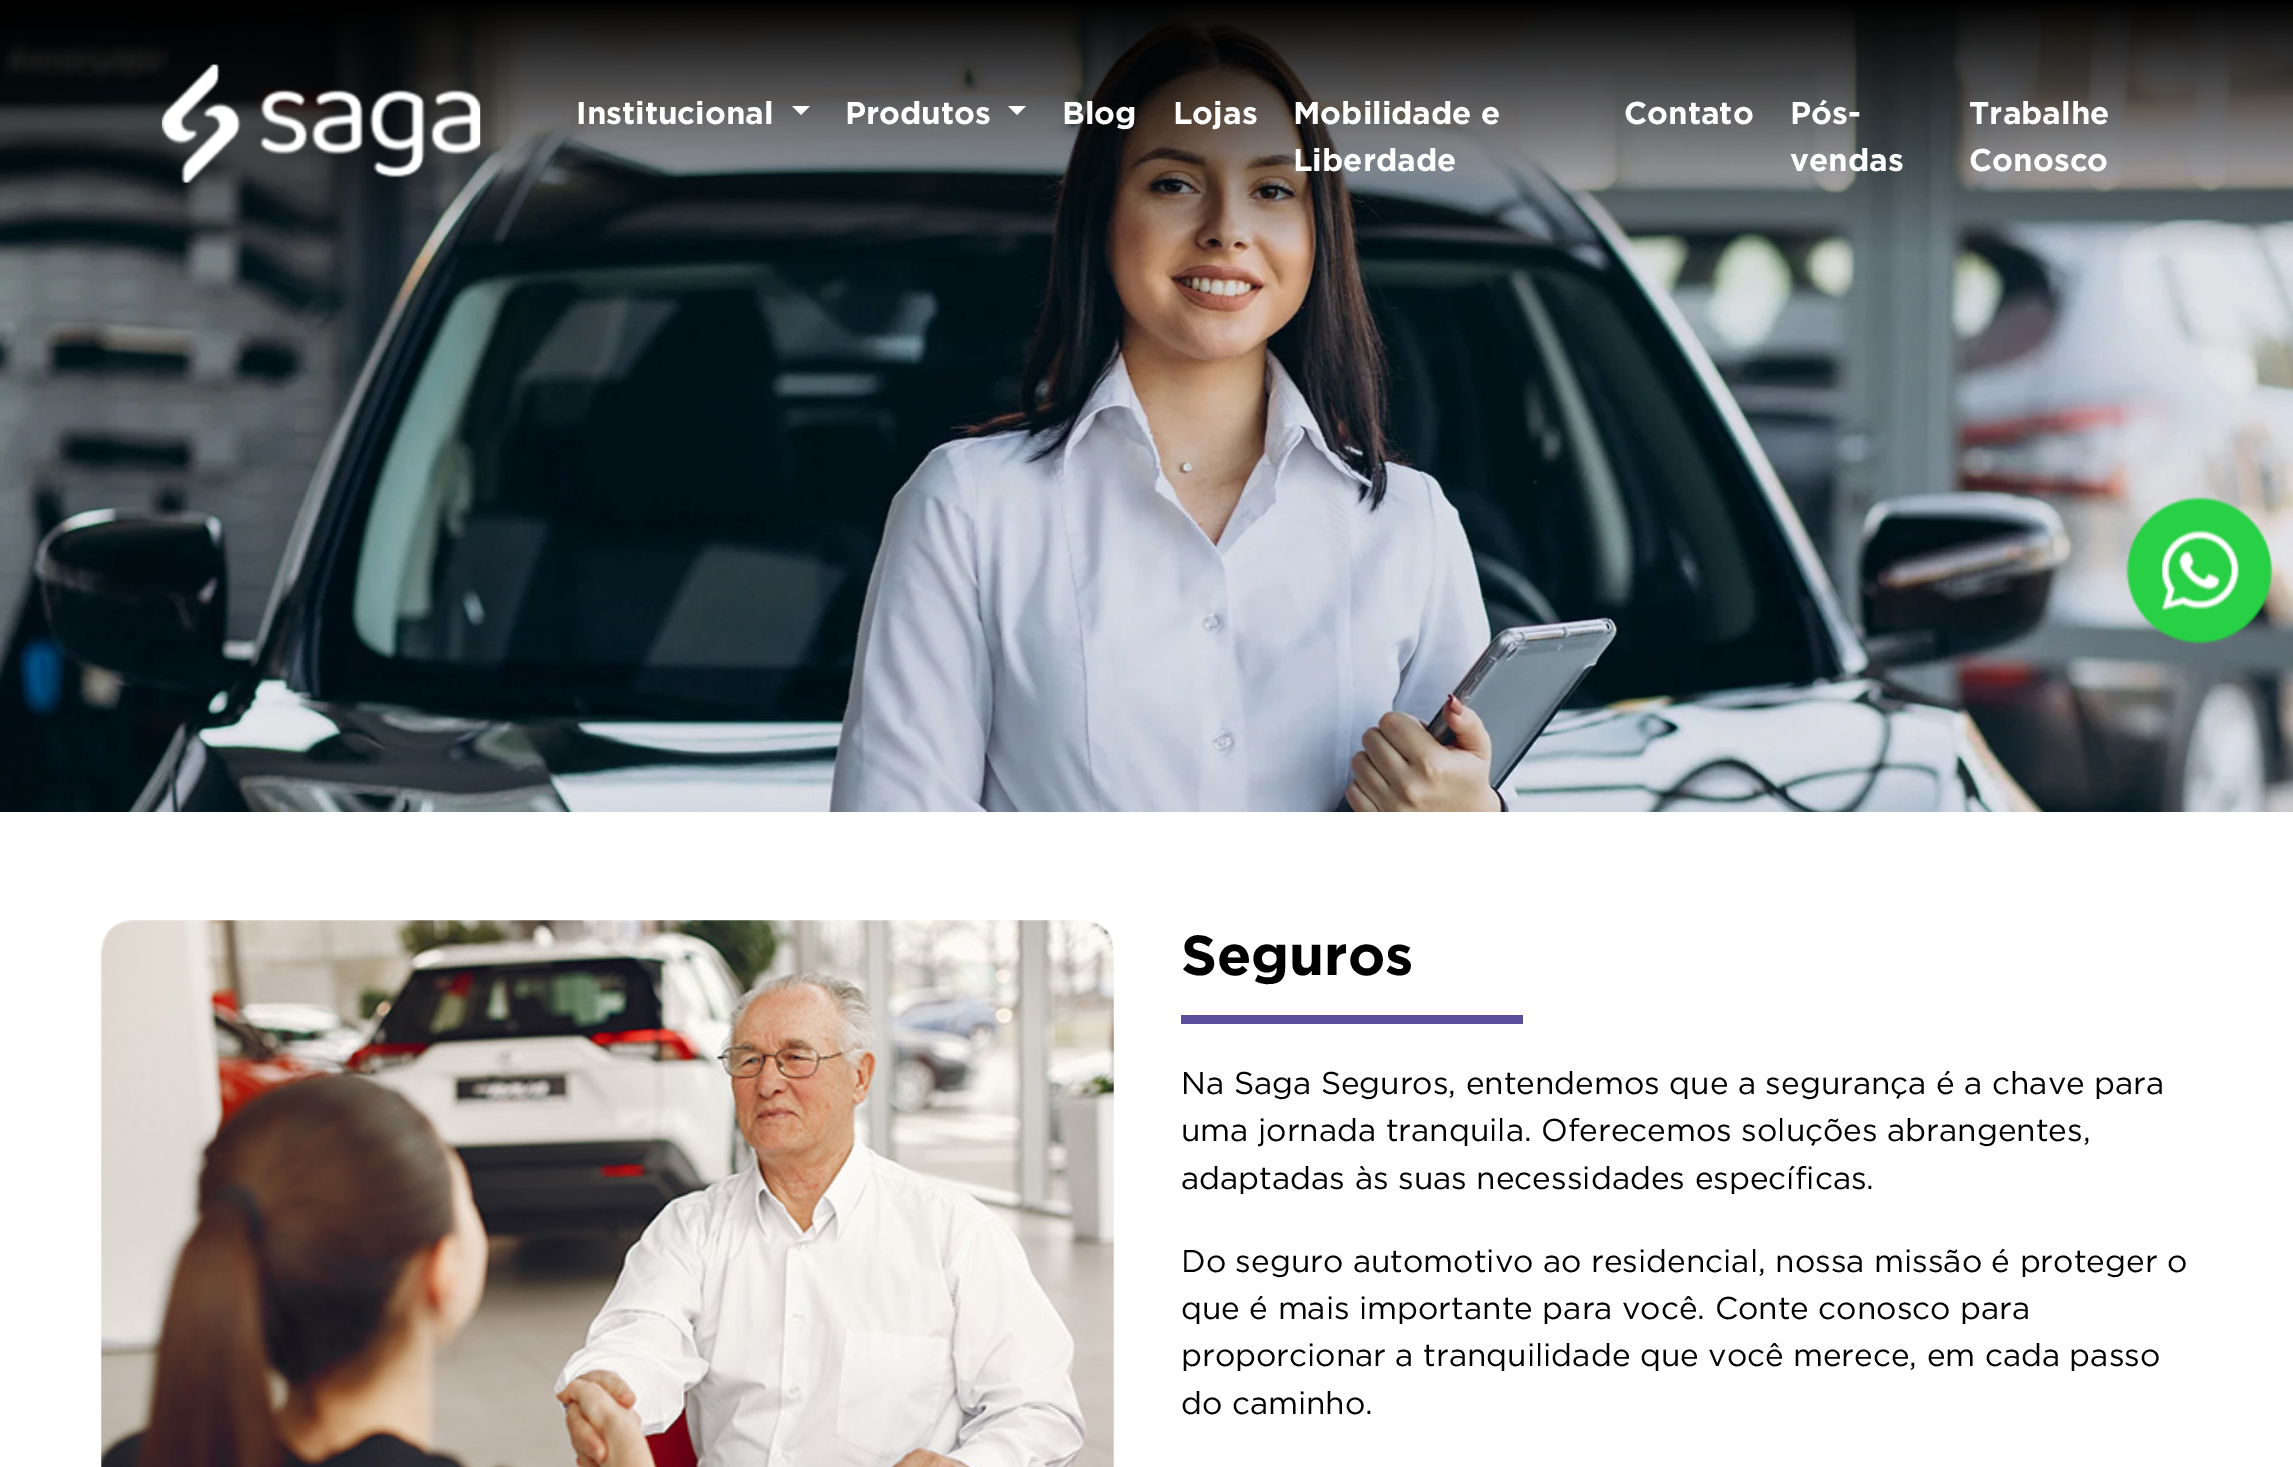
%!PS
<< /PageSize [2293 1467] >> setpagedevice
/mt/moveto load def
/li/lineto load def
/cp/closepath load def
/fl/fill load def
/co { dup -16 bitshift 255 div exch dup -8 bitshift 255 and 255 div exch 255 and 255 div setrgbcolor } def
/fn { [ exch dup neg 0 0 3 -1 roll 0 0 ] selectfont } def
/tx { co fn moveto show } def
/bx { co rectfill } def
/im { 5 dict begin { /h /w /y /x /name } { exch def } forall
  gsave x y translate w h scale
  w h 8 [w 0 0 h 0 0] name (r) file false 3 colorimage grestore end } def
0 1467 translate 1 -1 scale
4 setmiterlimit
0 0 2293 1467 16#FFFFFF bx
(media/3.raw) 0 0 2293 812 im
(media/1.raw) 161 64 320 119 im
792 106 mt 810 106 li 801 115 li cp fl
1008 106 mt 1026 106 li 1017 115 li cp fl
(media/2.raw) 2126 497 147 148 im
(media/4.raw) 101 920 1013 547 im
1181 1015 342 9 16#5A4D99 bx
(Institucional) 576 124 /Gotham-Bold 31.5 16#FFFFFF tx
(Produtos) 845 124 /Gotham-Bold 31.5 16#FFFFFF tx
(Blog) 1062 124 /Gotham-Bold 31.5 16#FFFFFF tx
(Lojas) 1173 124 /Gotham-Bold 31.5 16#FFFFFF tx
(Mobilidade e) 1293 124 /Gotham-Bold 31.5 16#FFFFFF tx
(Liberdade) 1293 171 /Gotham-Bold 31.5 16#FFFFFF tx
(Contato) 1624 124 /Gotham-Bold 31.5 16#FFFFFF tx
(Pós-) 1790 124 /Gotham-Bold 31.5 16#FFFFFF tx
(vendas) 1790 171 /Gotham-Bold 31.5 16#FFFFFF tx
(Trabalhe) 1969 124 /Gotham-Bold 31.5 16#FFFFFF tx
(Conosco) 1969 171 /Gotham-Bold 31.5 16#FFFFFF tx
(Seguros) 1181 975 /Gotham-Bold 56.25 16#000000 tx
(Na Saga Seguros, entendemos que a segurança é a chave para) 1181 1094 /Gotham-Regular 31.5 16#000000 tx
(uma jornada tranquila. Oferecemos soluções abrangentes,) 1181 1141 /Gotham-Regular 31.5 16#000000 tx
(adaptadas às suas necessidades específicas.) 1181 1189 /Gotham-Regular 31.5 16#000000 tx
(Do seguro automotivo ao residencial, nossa missão é proteger o) 1181 1272 /Gotham-Regular 31.5 16#000000 tx
(que é mais importante para você. Conte conosco para) 1181 1319 /Gotham-Regular 31.5 16#000000 tx
(proporcionar a tranquilidade que você merece, em cada passo) 1181 1366 /Gotham-Regular 31.5 16#000000 tx
(do caminho.) 1181 1414 /Gotham-Regular 31.5 16#000000 tx
showpage
